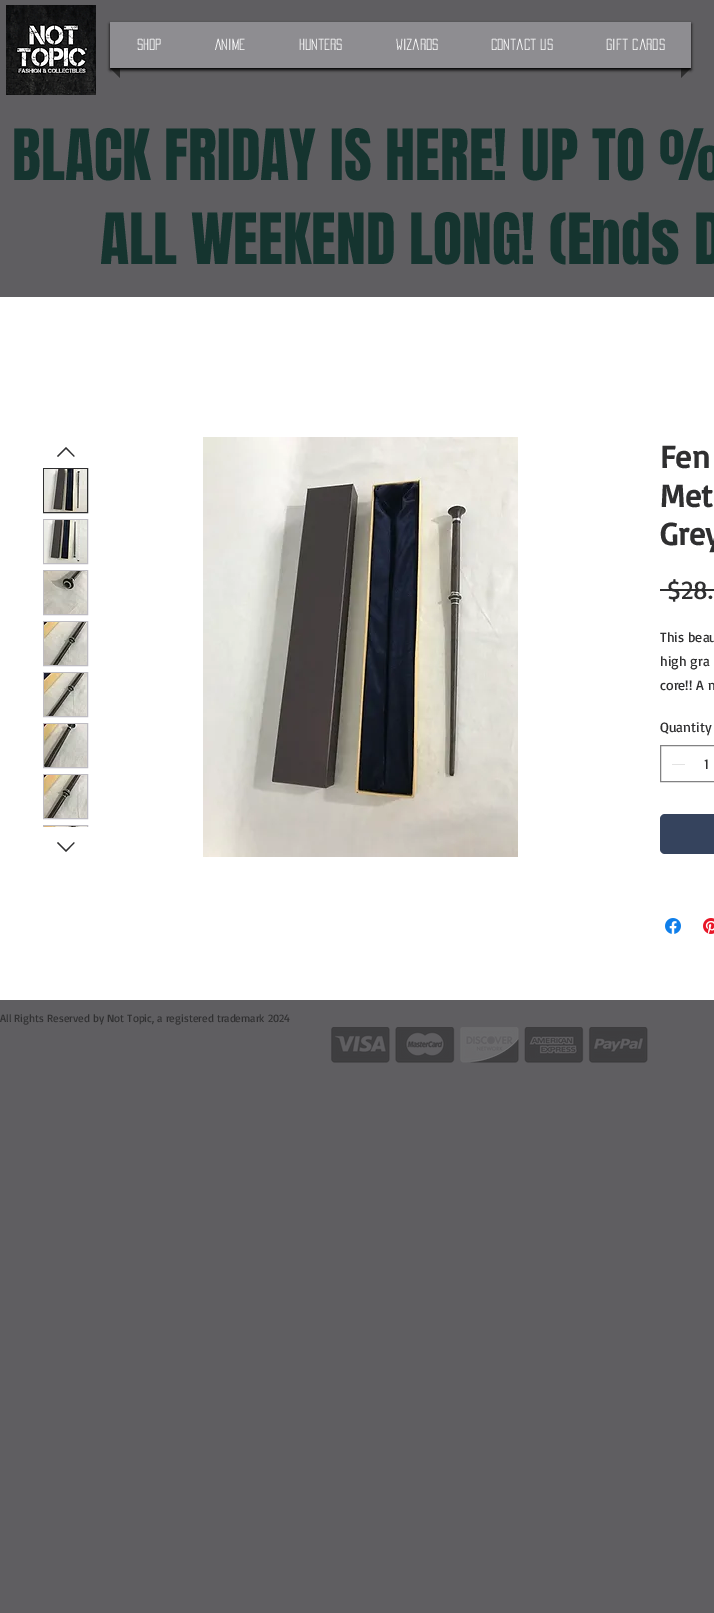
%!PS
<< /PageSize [714 1613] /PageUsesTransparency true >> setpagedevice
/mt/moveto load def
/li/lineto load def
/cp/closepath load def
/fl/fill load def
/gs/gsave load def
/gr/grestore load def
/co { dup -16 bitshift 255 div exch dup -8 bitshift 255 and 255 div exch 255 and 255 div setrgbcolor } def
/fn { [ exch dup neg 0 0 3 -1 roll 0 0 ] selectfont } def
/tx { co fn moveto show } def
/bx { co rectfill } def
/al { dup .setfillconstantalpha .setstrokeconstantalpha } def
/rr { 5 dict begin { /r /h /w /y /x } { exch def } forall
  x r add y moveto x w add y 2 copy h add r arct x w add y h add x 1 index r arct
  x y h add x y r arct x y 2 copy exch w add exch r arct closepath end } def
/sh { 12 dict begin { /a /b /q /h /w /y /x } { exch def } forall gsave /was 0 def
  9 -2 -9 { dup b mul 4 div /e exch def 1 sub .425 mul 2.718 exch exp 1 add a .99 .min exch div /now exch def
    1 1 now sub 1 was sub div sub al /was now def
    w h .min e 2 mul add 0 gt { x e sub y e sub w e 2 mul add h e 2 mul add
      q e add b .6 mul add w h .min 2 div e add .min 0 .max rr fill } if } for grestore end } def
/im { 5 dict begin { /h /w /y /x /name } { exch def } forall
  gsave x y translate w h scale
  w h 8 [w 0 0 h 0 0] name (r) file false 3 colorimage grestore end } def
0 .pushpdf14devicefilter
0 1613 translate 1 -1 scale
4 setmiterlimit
0 0 714 1613 16#5F5E61 bx
(media/1.raw) 6 5 90 90 im
16#2F2F30 co
110 68 mt 120 68 li 120 78 li cp fl
681 68 mt 691 68 li 681 78 li cp fl
16#000000 co
110 24 581 46 0 1.5 1 sh
110 22 581 46 16#8E8D91 bx
0 297 714 703 16#FFFFFF bx
16#2F2F30 co
66 447 mt 74.5 456 li 74 457 li 66 449 li 58 457 li 57 456 li cp eofill
43.5 468.5 44 44 rectstroke
(media/2.raw) 44 469 43 43 im
16#BEBCC2 co
43.5 519.5 44 44 rectstroke
(media/3.raw) 44 520 43 43 im
43.5 570.5 44 44 rectstroke
(media/4.raw) 44 571 43 43 im
43.5 621.5 44 44 rectstroke
(media/5.raw) 44 622 43 43 im
43.5 672.5 44 44 rectstroke
(media/6.raw) 44 673 43 43 im
43.5 723.5 44 44 rectstroke
(media/7.raw) 44 724 43 43 im
43.5 774.5 44 44 rectstroke
(media/8.raw) 44 775 43 43 im
16#2F2F30 co
74 842 mt 74.5 843 li 66 852 li 57 843 li 58 842 li 66 850 li cp eofill
gs
39 464 53 363 rectclip
16#BEBCC2 co
43.5 825.5 44 44 rectstroke
gr
(media/9.raw) 44 826 43 1 im
(media/10.raw) 203 437 315 420 im
660 589 54 2 16#2F2F30 bx
16#828283 co
660.5 745.5 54 36 rectstroke
672 764 13 1 16#E3E3E3 bx
16#35435D co
660 814 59 40 5 rr fl
(media/11.raw) 665 918 16 16 im
(media/12.raw) 703 918 11 16 im
(media/13.raw) 331 1027 317 36 im
(Shop) 137 50 /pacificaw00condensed-Regular 14 16#FFFFFF tx
(Anime) 215 50 /pacificaw00condensed-Regular 14 16#FFFFFF tx
(Hunters) 299 50 /pacificaw00condensed-Regular 14 16#FFFFFF tx
(Wizards) 396 50 /pacificaw00condensed-Regular 14 16#FFFFFF tx
(Contact Us) 491 50 /pacificaw00condensed-Regular 14 16#FFFFFF tx
(Gift Cards) 606 50 /pacificaw00condensed-Regular 14 16#FFFFFF tx
(BLACK FRIDAY IS HERE! UP TO %) 12 180 /Anton-Regular 60 16#15342F tx
(ALL WEEKEND LONG! \(Ends D) 100 264 /Anton-Regular 60 16#15342F tx
(Fen) 660 468 /Basic-Bold 32 16#2F2F30 tx
(Met) 660 507 /Basic-Bold 32 16#2F2F30 tx
(Grey) 660 545 /Basic-Bold 32 16#2F2F30 tx
($28.) 667 599 /Basic-Regular 26 16#2F2F30 tx
(This beau) 660 642 /Basic-Regular 14 16#2F2F30 tx
(high gra) 660 666 /Basic-Regular 14 16#2F2F30 tx
(core!! A m) 660 690 /Basic-Regular 14 16#2F2F30 tx
(Quantity) 660 732 /Basic-Regular 14 16#2F2F30 tx
(1) 704 769 /Basic-Regular 14 16#2F2F30 tx
(All Rights Reserved by Not Topic, a registered trademark 2024) 0 1022 /Basic-Regular 11 16#2F2F30 tx
.poppdf14devicefilter showpage
